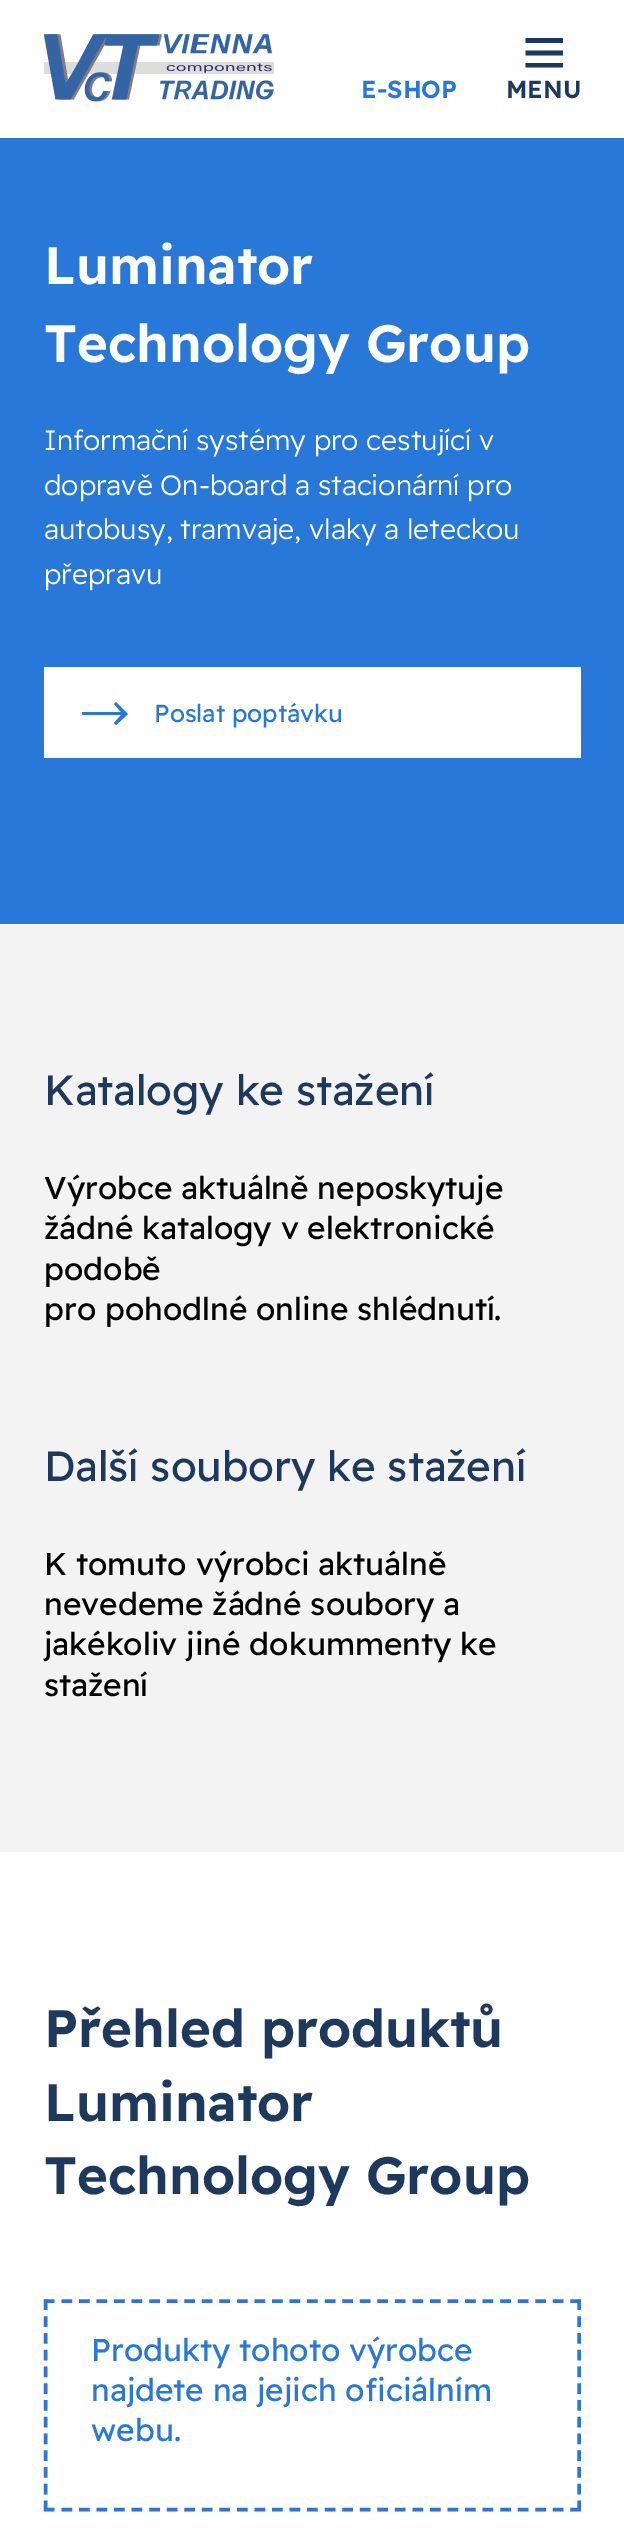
%!PS
<< /PageSize [624 2538] >> setpagedevice
/mt/moveto load def
/li/lineto load def
/cp/closepath load def
/fl/fill load def
/st/stroke load def
/lw/setlinewidth load def
/co { dup -16 bitshift 255 div exch dup -8 bitshift 255 and 255 div exch 255 and 255 div setrgbcolor } def
/fn { [ exch dup neg 0 0 3 -1 roll 0 0 ] selectfont } def
/tx { co fn moveto show } def
/bx { co rectfill } def
/im { 5 dict begin { /h /w /y /x /name } { exch def } forall
  gsave x y translate w h scale
  w h 8 [w 0 0 h 0 0] name (r) file false 3 colorimage grestore end } def
0 2538 translate 1 -1 scale
4 setmiterlimit
0 0 624 2538 16#FFFFFF bx
(media/1.raw) 44 34 230 68 im
16#1D395E co
563 38 mt 563 43 li 525.5 43 li 525.5 38 li cp 525.5 55.5 mt 563 55.5 li 563 50.5 li 525.5 50.5 li cp 525.5 67.5 mt 563 67.5 li 563 63 li 525.5 63 li cp fl
0 138 624 786 16#2878D9 bx
44 667 537 91 16#FFFFFF bx
16#2878D9 co
128 714 mt 116 702 li 114 704 li 121 712 li 82 712 li 82 715 li 121 715 li 114 723 li 116 725 li cp fl
0 924 624 928 16#F3F3F3 bx
16#2878D9 co
3.5 lw
[10.5 7.05] 0 setdash
44 2301 mt 581 2301 li st
[10.5 6.27] 0 setdash
579 2299.5 mt 579 2511 li st
[10.5 7.05] 0 setdash
44 2509.5 mt 581 2509.5 li st
[10.5 6.27] 0 setdash
45.5 2299.5 mt 45.5 2511 li st
(E-SHOP) 361 98 /ReadexPro-SemiBold 24.5 16#2878D9 tx
(MENU) 506 98 /ReadexPro-SemiBold 24.5 16#1D395E tx
(Luminator) 44 284 /ReadexPro-SemiBold 52.5 16#FFFFFF tx
(Technology Group) 44 362 /ReadexPro-SemiBold 52.5 16#FFFFFF tx
(Informační systémy pro cestující v) 44 450 /ReadexPro-Light 28 16#FFFFFF tx
(dopravě On-board a stacionární pro) 44 495 /ReadexPro-Light 28 16#FFFFFF tx
(autobusy, tramvaje, vlaky a leteckou) 44 539 /ReadexPro-Light 28 16#FFFFFF tx
(přepravu) 44 584 /ReadexPro-Light 28 16#FFFFFF tx
(Poslat poptávku) 154 722 /ReadexPro-Regular 24.5 16#2878D9 tx
(Katalogy ke stažení) 44 1105 /ReadexPro-Regular 42 16#1D395E tx
(Výrobce aktuálně neposkytuje) 44 1199 /ReadexPro-Regular 31.5 16#000000 tx
(žádné katalogy v elektronické) 44 1239 /ReadexPro-Regular 31.5 16#000000 tx
(podobě) 44 1280 /ReadexPro-Regular 31.5 16#000000 tx
(pro pohodlné online shlédnutí.) 44 1320 /ReadexPro-Regular 31.5 16#000000 tx
(Další soubory ke stažení) 44 1481 /ReadexPro-Regular 42 16#1D395E tx
(K tomuto výrobci aktuálně) 44 1575 /ReadexPro-Regular 31.5 16#000000 tx
(nevedeme žádné soubory a) 44 1615 /ReadexPro-Regular 31.5 16#000000 tx
(jakékoliv jiné dokummenty ke) 44 1655 /ReadexPro-Regular 31.5 16#000000 tx
(stažení) 44 1696 /ReadexPro-Regular 31.5 16#000000 tx
(Přehled produktů) 44 2047 /ReadexPro-SemiBold 52.5 16#1D395E tx
(Luminator) 44 2121 /ReadexPro-SemiBold 52.5 16#1D395E tx
(Technology Group) 44 2194 /ReadexPro-SemiBold 52.5 16#1D395E tx
(Produkty tohoto výrobce) 91 2361 /ReadexPro-Regular 31.5 16#2878D9 tx
(najdete na jejich oficiálním) 91 2401 /ReadexPro-Regular 31.5 16#2878D9 tx
(webu.) 91 2441 /ReadexPro-Regular 31.5 16#2878D9 tx
showpage
